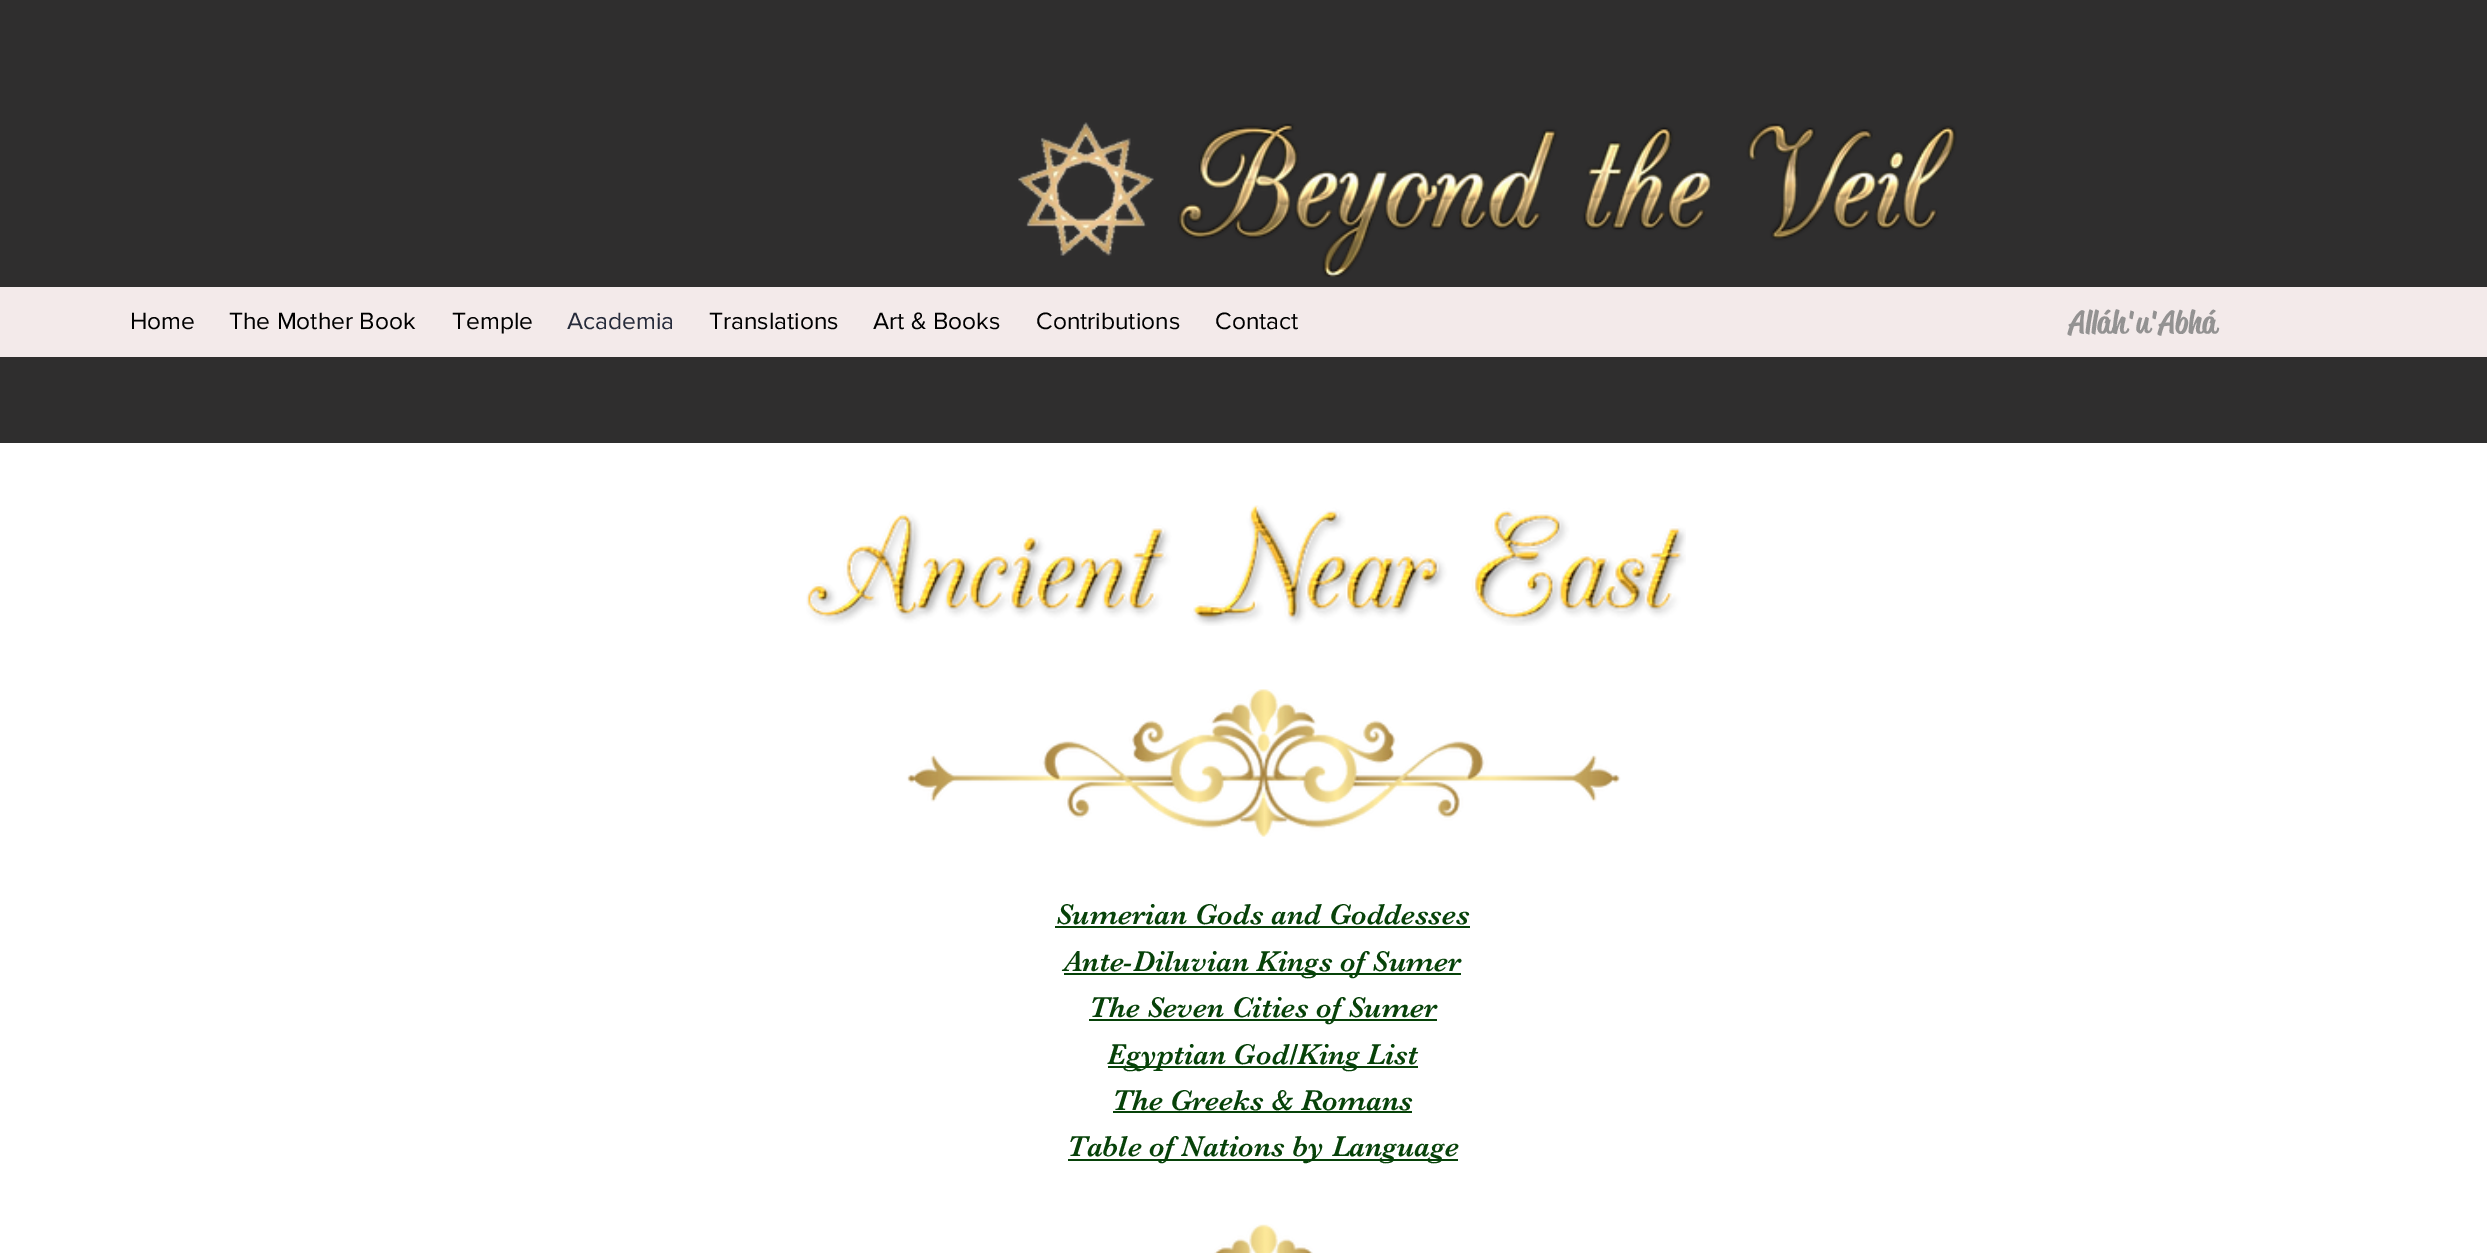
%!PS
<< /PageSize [2487 1253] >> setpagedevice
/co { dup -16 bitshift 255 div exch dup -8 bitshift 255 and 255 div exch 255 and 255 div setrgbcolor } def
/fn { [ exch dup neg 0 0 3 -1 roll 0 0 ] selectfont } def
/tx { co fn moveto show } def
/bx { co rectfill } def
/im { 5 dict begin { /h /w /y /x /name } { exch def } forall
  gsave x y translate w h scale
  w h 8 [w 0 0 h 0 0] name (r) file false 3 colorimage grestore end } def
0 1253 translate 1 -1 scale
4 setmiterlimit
0 0 2487 1253 16#FFFFFF bx
0 0 2487 443 16#2F2E2E bx
(media/1.raw) 1018 122 136 134 im
(media/2.raw) 1177 123 780 154 im
0 287 2487 70 16#F3EAEA bx
(media/3.raw) 806 505 880 121 im
(media/4.raw) 906 689 715 148 im
1055 926 415 2 16#074209 bx
1064 973 397 2 16#074209 bx
1089 1019 348 2 16#074209 bx
1108 1066 310 2 16#074209 bx
1113 1111 299 2 16#074209 bx
1068 1159 390 2 16#074209 bx
(media/5.raw) 1214 1224 99 29 im
(Home) 130 329 /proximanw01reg-Regular 24.5 16#000000 tx
(The Mother Book) 229 329 /proximanw01reg-Regular 24.5 16#000000 tx
(Temple) 452 329 /proximanw01reg-Regular 24.5 16#000000 tx
(Academia) 567 329 /proximanw01reg-Regular 24.5 16#262B3B tx
(Translations) 709 329 /proximanw01reg-Regular 24.5 16#000000 tx
(Art & Books) 873 329 /proximanw01reg-Regular 24.5 16#000000 tx
(Contributions) 1036 329 /proximanw01reg-Regular 24.5 16#000000 tx
(Contact) 1215 329 /proximanw01reg-Regular 24.5 16#000000 tx
(Alláh'u'Abhá) 2069 333 /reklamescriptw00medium-Medium 31.5 16#939292 tx
(Sumerian Gods and Goddesses) 1056 924 /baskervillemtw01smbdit-Regular 29.75 16#074209 tx
(Ante-Diluvian Kings of Sumer) 1064 971 /baskervillemtw01smbdit-Regular 29.75 16#074209 tx
(The Seven Cities of Sumer) 1089 1017 /baskervillemtw01smbdit-Regular 29.75 16#074209 tx
(Egyptian God/King List) 1107 1064 /baskervillemtw01smbdit-Regular 29.75 16#074209 tx
(The Greeks & Romans) 1112 1110 /baskervillemtw01smbdit-Regular 29.75 16#074209 tx
(Table of Nations by Language) 1067 1156 /baskervillemtw01smbdit-Regular 29.75 16#074209 tx
showpage
